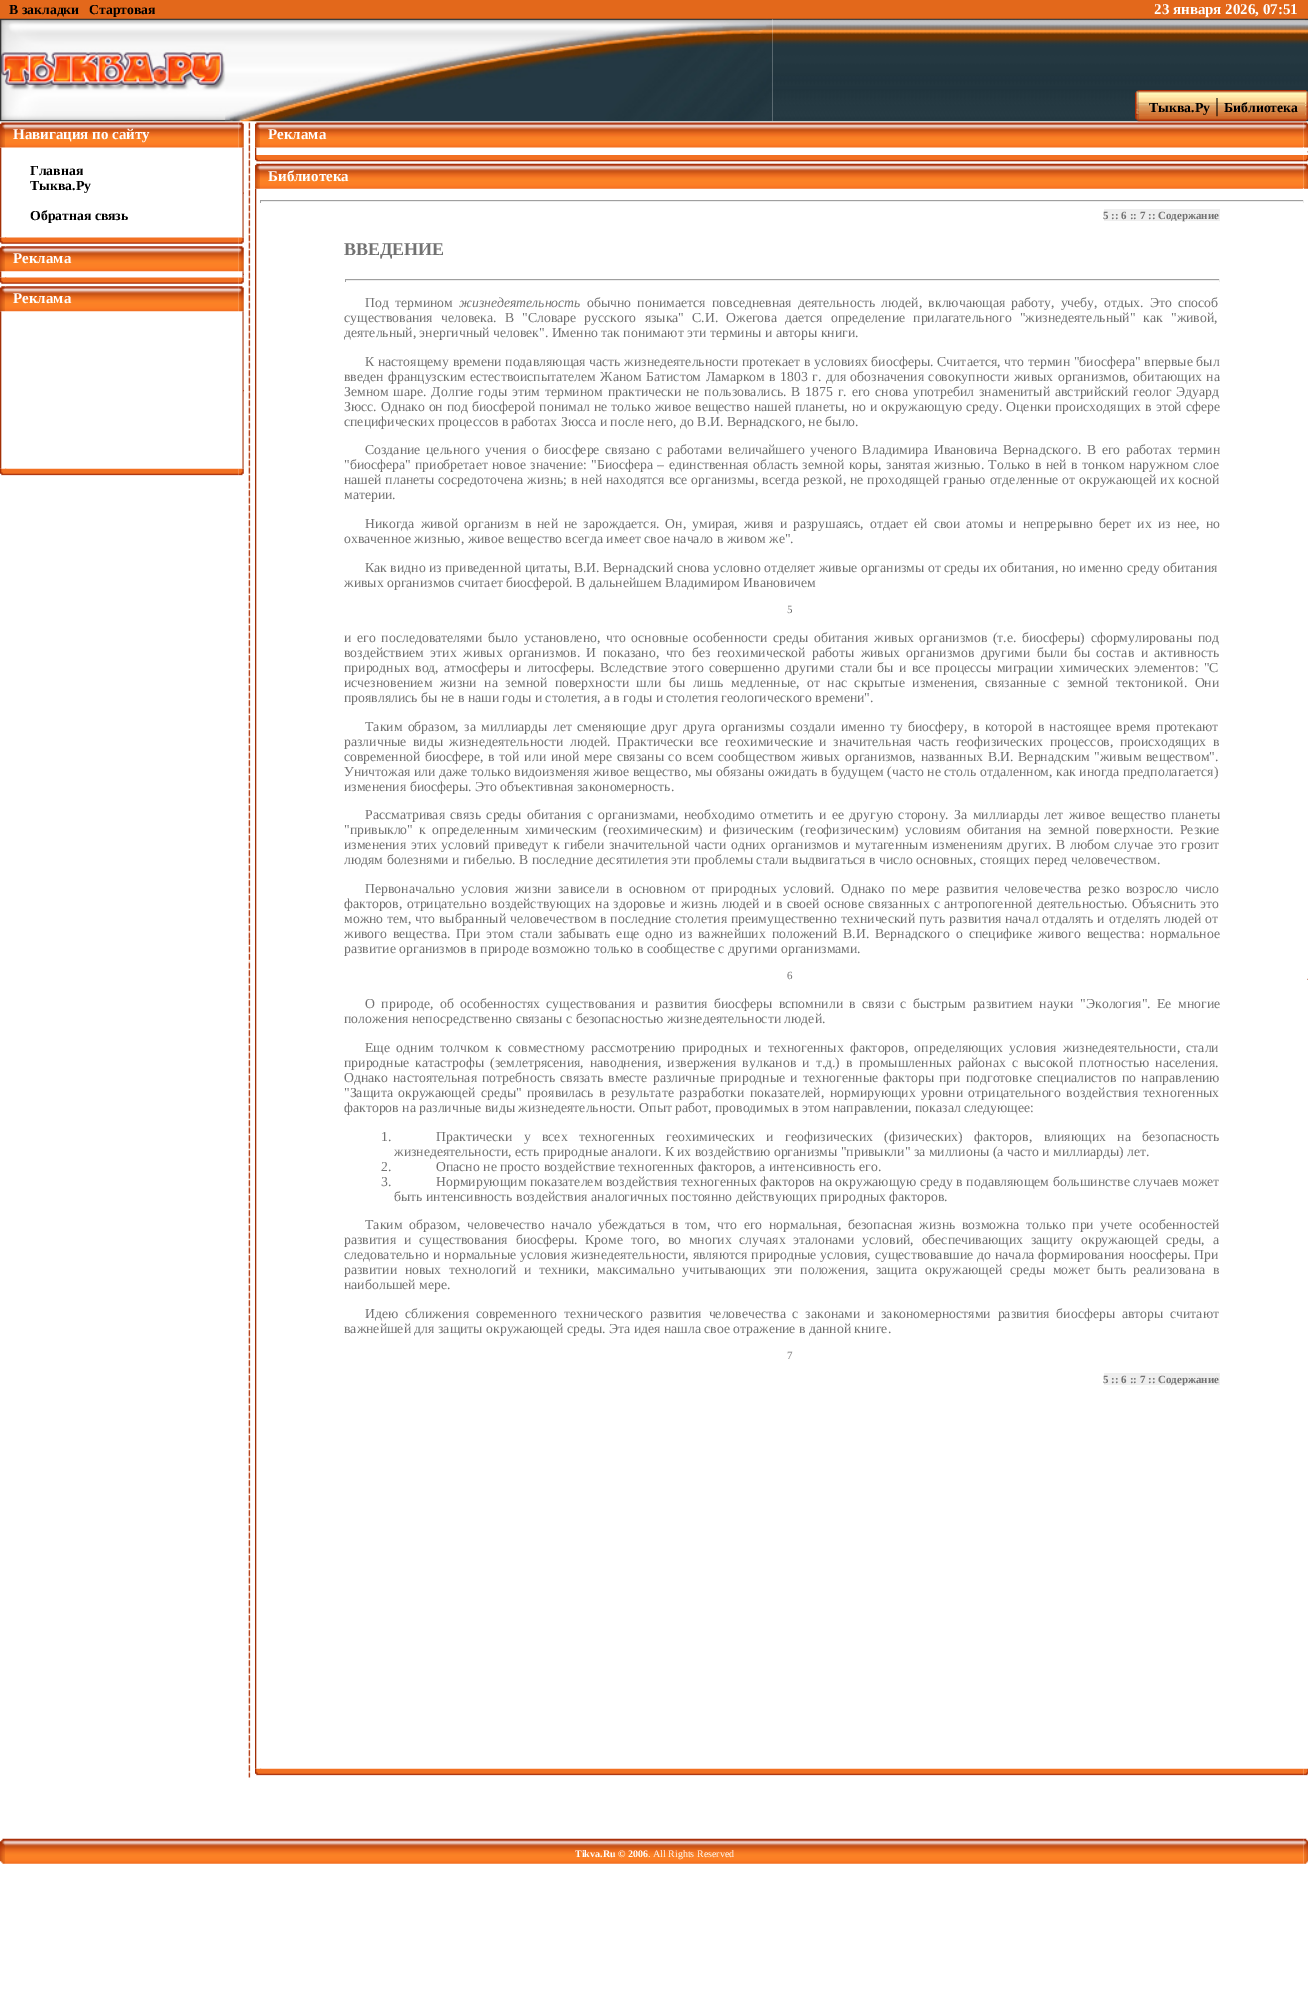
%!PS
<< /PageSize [1308 1997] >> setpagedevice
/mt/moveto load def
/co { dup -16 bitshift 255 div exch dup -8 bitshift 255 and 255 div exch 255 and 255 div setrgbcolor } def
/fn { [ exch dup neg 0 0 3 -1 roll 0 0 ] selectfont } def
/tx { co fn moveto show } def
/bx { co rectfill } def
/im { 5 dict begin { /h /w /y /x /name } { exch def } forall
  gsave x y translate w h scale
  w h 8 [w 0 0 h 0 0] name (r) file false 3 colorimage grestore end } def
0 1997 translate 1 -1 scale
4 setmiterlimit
0 0 1308 1997 16#FFFFFF bx
0 0 1308 19 16#E3681B bx
(media/2.raw) 772 18 533 104 im
(media/1.raw) 0 18 773 104 im
(media/3.raw) 1305 18 3 104 im
(media/5.raw) 1138 90 167 32 im
(media/4.raw) 1135 90 4 32 im
(media/6.raw) 1305 90 3 32 im
(media/10.raw) 0 147 2 91 im
(media/7.raw) 0 122 5 26 im
(media/8.raw) 5 122 234 26 im
(media/11.raw) 238 147 6 91 im
(media/18.raw) 5 246 234 26 im
(media/21.raw) 238 271 6 7 im
(media/24.raw) 5 286 234 26 im
(media/27.raw) 238 311 6 158 im
(media/33.raw) 243 122 8 1656 im
(media/9.raw) 238 122 6 26 im
(media/12.raw) 243 192 1 2 im
(media/13.raw) 0 237 5 7 im
(media/14.raw) 5 237 234 7 im
(media/15.raw) 5 237 2 10 im
(media/16.raw) 238 237 6 10 im
(media/20.raw) 0 271 2 7 im
(media/17.raw) 0 246 5 26 im
(media/19.raw) 238 246 6 26 im
(media/22.raw) 243 273 1 2 im
(media/13.raw) 0 277 5 7 im
(media/14.raw) 5 277 234 7 im
(media/15.raw) 5 277 2 10 im
(media/16.raw) 238 277 6 10 im
(media/26.raw) 0 311 2 158 im
(media/23.raw) 0 286 5 26 im
(media/25.raw) 238 286 6 26 im
(media/28.raw) 243 390 1 2 im
(media/29.raw) 0 468 5 8 im
(media/30.raw) 5 468 234 8 im
(media/31.raw) 5 468 2 1 im
(media/32.raw) 238 468 6 8 im
(media/34.raw) 248 938 3 24 im
(media/37.raw) 255 147 2 8 im
(media/7.raw) 255 122 5 26 im
(media/35.raw) 260 122 1044 26 im
1303 147 1 8 16#FFFFFF bx
(media/36.raw) 1303 122 5 26 im
(media/38.raw) 1307 151 1 2 im
(media/39.raw) 255 155 5 7 im
(media/40.raw) 260 155 1044 7 im
(media/44.raw) 260 163 1044 26 im
(media/41.raw) 260 163 2 1 im
(media/42.raw) 1303 155 5 9 im
(media/46.raw) 255 188 2 1581 im
(media/43.raw) 255 163 5 26 im
1303 188 1 1 16#FFFFFF bx
(media/45.raw) 1303 163 5 26 im
260 200 1044 1 16#9F9F9F bx
1303 200 1 3 16#EEEEEE bx
260 201 1044 1 16#EEEEEE bx
260 200 1 3 16#9F9F9F bx
1104 209 116 12 16#EEEEEE bx
345 279 875 1 16#9F9F9F bx
1219 279 1 3 16#EEEEEE bx
345 280 875 1 16#EEEEEE bx
345 279 1 3 16#9F9F9F bx
1104 1373 116 12 16#EEEEEE bx
(media/47.raw) 1307 978 1 2 im
(media/29.raw) 255 1768 5 8 im
(media/48.raw) 260 1768 1044 8 im
(media/31.raw) 260 1768 2 1 im
(media/49.raw) 1303 1768 5 8 im
(media/50.raw) 0 1838 5 26 im
(media/51.raw) 5 1838 1299 26 im
(media/52.raw) 1303 1838 5 26 im
(В закладки) 9 14 /LiberationSerif-Bold 13.75 16#000000 tx
(Стартовая) 89 14 /LiberationSerif-Bold 13.75 16#000000 tx
(23 января 2026, 07:51) 1154 14 /LiberationSerif-Bold 15 16#FFFFFF tx
(Тыква.Ру) 1149 112 /LiberationSerif-Bold 13.75 16#000000 tx
(|) 1215 112 /LiberationSerif-Regular 20 16#000000 tx
(Библиотека) 1224 112 /LiberationSerif-Bold 13.75 16#000000 tx
(Навигация по сайту) 13 139 /LiberationSerif-Bold 15 16#FFFFFF tx
(Главная) 30 175 /LiberationSerif-Bold 13.75 16#000000 tx
(Тыква.Ру) 30 190 /LiberationSerif-Bold 13.75 16#000000 tx
(Обратная связь) 30 220 /LiberationSerif-Bold 13.75 16#000000 tx
(Реклама) 13 263 /LiberationSerif-Bold 15 16#FFFFFF tx
(Реклама) 13 303 /LiberationSerif-Bold 15 16#FFFFFF tx
(Реклама) 268 139 /LiberationSerif-Bold 15 16#FFFFFF tx
(Библиотека) 268 181 /LiberationSerif-Bold 15 16#FFFFFF tx
(5 :: 6 :: 7 :: Содержание) 1103 219 /LiberationSerif-Bold 11 16#727272 tx
(ВВЕДЕНИЕ) 344 255 /LiberationSerif-Bold 18 16#727272 tx
/LiberationSerif-Regular 13.75 fn
365 307 mt 2.75 0 32 (Под термином) widthshow
(жизнедеятельность) 459 307 /LiberationSerif-Italic 13.75 16#727272 tx
/LiberationSerif-Regular 13.75 fn
587 307 mt 2.75 0 32 (обычно понимается повседневная деятельность людей, включающая работу, учебу, отдых. Это способ) widthshow
344 322 mt 4.75 0 32 (существования человека. В "Словаре русского языка" С.И. Ожегова дается определение прилагательного "жизнедеятельный" как "живой,) widthshow
(деятельный, энергичный человек". Именно так понимают эти термины и авторы книги.) 344 337 /LiberationSerif-Regular 13.75 16#727272 tx
365 366 mt .25 0 32 (К настоящему времени подавляющая часть жизнедеятельности протекает в условиях биосферы. Считается, что термин "биосфера" впервые был) widthshow
344 381 mt 1 0 32 (введен французским естествоиспытателем Жаном Батистом Ламарком в 1803 г. для обозначения совокупности живых организмов, обитающих на) widthshow
344 396 mt 1.4 0 32 (Земном шаре. Долгие годы этим термином практически не пользовались. В 1875 г. его снова употребил знаменитый австрийский геолог Эдуард) widthshow
344 411 mt .5 0 32 (Зюсс. Однако он под биосферой понимал не только живое вещество нашей планеты, но и окружающую среду. Оценки происходящих в этой сфере) widthshow
(специфических процессов в работах Зюсса и после него, до В.И. Вернадского, не было.) 344 426 /LiberationSerif-Regular 13.75 16#727272 tx
365 454 mt 2.25 0 32 (Создание цельного учения о биосфере связано с работами величайшего ученого Владимира Ивановича Вернадского. В его работах термин) widthshow
344 469 mt 1 0 32 ("биосфера" приобретает новое значение: "Биосфера – единственная область земной коры, занятая жизнью. Только в ней в тонком наружном слое) widthshow
344 484 mt .4 0 32 (нашей планеты сосредоточена жизнь; в ней находятся все организмы, всегда резкой, не проходящей гранью отделенные от окружающей их косной) widthshow
(материи.) 344 499 /LiberationSerif-Regular 13.75 16#727272 tx
365 528 mt 2.6 0 32 (Никогда живой организм в ней не зарождается. Он, умирая, живя и разрушаясь, отдает ей свои атомы и непрерывно берет их из нее, но) widthshow
(охваченное жизнью, живое вещество всегда имеет свое начало в живом же".) 344 543 /LiberationSerif-Regular 13.75 16#727272 tx
(Как видно из приведенной цитаты, В.И. Вернадский снова условно отделяет живые организмы от среды их обитания, но именно среду обитания) 365 572 /LiberationSerif-Regular 13.75 16#727272 tx
(живых организмов считает биосферой. В дальнейшем Владимиром Ивановичем) 344 587 /LiberationSerif-Regular 13.75 16#727272 tx
(5) 787 613 /LiberationSerif-Regular 11 16#727272 tx
/LiberationSerif-Regular 13.75 fn
344 642 mt 2.25 0 32 (и его последователями было установлено, что основные особенности среды обитания живых организмов \(т.е. биосферы\) сформулированы под) widthshow
344 657 mt 3 0 32 (воздействием этих живых организмов. И показано, что без геохимической работы живых организмов другими были бы состав и активность) widthshow
344 672 mt 1.8 0 32 (природных вод, атмосферы и литосферы. Вследствие этого совершенно другими стали бы и все процессы миграции химических элементов: "С) widthshow
344 687 mt 4.1 0 32 (исчезновением жизни на земной поверхности шли бы лишь медленные, от нас скрытые изменения, связанные с земной тектоникой. Они) widthshow
(проявлялись бы не в наши годы и столетия, а в годы и столетия геологического времени".) 344 702 /LiberationSerif-Regular 13.75 16#727272 tx
365 731 mt 1.9 0 32 (Таким образом, за миллиарды лет сменяющие друг друга организмы создали именно ту биосферу, в которой в настоящее время протекают) widthshow
344 746 mt 3 0 32 (различные виды жизнедеятельности людей. Практически все геохимические и значительная часть геофизических процессов, происходящих в) widthshow
344 761 mt 1.25 0 32 (современной биосфере, в той или иной мере связаны со всем сообществом живых организмов, названных В.И. Вернадским "живым веществом".) widthshow
344 776 mt .1 0 32 (Уничтожая или даже только видоизменяя живое вещество, мы обязаны ожидать в будущем \(часто не столь отдаленном, как иногда предполагается\)) widthshow
(изменения биосферы. Это объективная закономерность.) 344 791 /LiberationSerif-Regular 13.75 16#727272 tx
365 819 mt 2 0 32 (Рассматривая связь среды обитания с организмами, необходимо отметить и ее другую сторону. За миллиарды лет живое вещество планеты) widthshow
344 834 mt 2.9 0 32 ("привыкло" к определенным химическим \(геохимическим\) и физическим \(геофизическим\) условиям обитания на земной поверхности. Резкие) widthshow
344 849 mt 1.2 0 32 (изменения этих условий приведут к гибели значительной части одних организмов и мутагенным изменениям других. В любом случае это грозит) widthshow
(людям болезнями и гибелью. В последние десятилетия эти проблемы стали выдвигаться в число основных, стоящих перед человечеством.) 344 864 /LiberationSerif-Regular 13.75 16#727272 tx
365 893 mt 2.9 0 32 (Первоначально условия жизни зависели в основном от природных условий. Однако по мере развития человечества резко возросло число) widthshow
344 908 mt 1 0 32 (факторов, отрицательно воздействующих на здоровье и жизнь людей и в своей основе связанных с антропогенной деятельностью. Объяснить это) widthshow
344 923 mt .4 0 32 (можно тем, что выбранный человечеством в последние столетия преимущественно технический путь развития начал отдалять и отделять людей от) widthshow
344 938 mt 2.5 0 32 (живого вещества. При этом стали забывать еще одно из важнейших положений В.И. Вернадского о специфике живого вещества: нормальное) widthshow
(развитие организмов в природе возможно только в сообществе с другими организмами.) 344 953 /LiberationSerif-Regular 13.75 16#727272 tx
(6) 787 979 /LiberationSerif-Regular 11 16#727272 tx
/LiberationSerif-Regular 13.75 fn
365 1008 mt 3 0 32 (О природе, об особенностях существования и развития биосферы вспомнили в связи с быстрым развитием науки "Экология". Ее многие) widthshow
(положения непосредственно связаны с безопасностью жизнедеятельности людей.) 344 1023 /LiberationSerif-Regular 13.75 16#727272 tx
365 1052 mt 2.9 0 32 (Еще одним толчком к совместному рассмотрению природных и техногенных факторов, определяющих условия жизнедеятельности, стали) widthshow
344 1067 mt 2.6 0 32 (природные катастрофы \(землетрясения, наводнения, извержения вулканов и т.д.\) в промышленных районах с высокой плотностью населения.) widthshow
344 1082 mt 1.75 0 32 (Однако настоятельная потребность связать вместе различные природные и техногенные факторы при подготовке специалистов по направлению) widthshow
344 1097 mt 2 0 32 ("Защита окружающей среды" проявилась в результате разработки показателей, нормирующих уровни отрицательного воздействия техногенных) widthshow
(факторов на различные виды жизнедеятельности. Опыт работ, проводимых в этом направлении, показал следующее:) 344 1112 /LiberationSerif-Regular 13.75 16#727272 tx
(1.) 381 1141 /LiberationSerif-Regular 13.75 16#727272 tx
436 1141 mt 8 0 32 (Практически у всех техногенных геохимических и геофизических \(физических\) факторов, влияющих на безопасность) widthshow
(жизнедеятельности, есть природные аналоги. К их воздействию организмы "привыкли" за миллионы \(а часто и миллиарды\) лет.) 394 1156 /LiberationSerif-Regular 13.75 16#727272 tx
(2.) 381 1171 /LiberationSerif-Regular 13.75 16#727272 tx
(Опасно не просто воздействие техногенных факторов, а интенсивность его.) 436 1171 /LiberationSerif-Regular 13.75 16#727272 tx
(3.) 381 1186 /LiberationSerif-Regular 13.75 16#727272 tx
436 1186 mt .1 0 32 (Нормирующим показателем воздействия техногенных факторов на окружающую среду в подавляющем большинстве случаев может) widthshow
(быть интенсивность воздействия аналогичных постоянно действующих природных факторов.) 394 1201 /LiberationSerif-Regular 13.75 16#727272 tx
365 1229 mt 3.25 0 32 (Таким образом, человечество начало убеждаться в том, что его нормальная, безопасная жизнь возможна только при учете особенностей) widthshow
344 1244 mt 4.4 0 32 (развития и существования биосферы. Кроме того, во многих случаях эталонами условий, обеспечивающих защиту окружающей среды, а) widthshow
344 1259 mt .6 0 32 (следовательно и нормальные условия жизнедеятельности, являются природные условия, существовавшие до начала формирования ноосферы. При) widthshow
344 1274 mt 4.1 0 32 (развитии новых технологий и техники, максимально учитывающих эти положения, защита окружающей среды может быть реализована в) widthshow
(наибольшей мере.) 344 1289 /LiberationSerif-Regular 13.75 16#727272 tx
365 1318 mt 3.4 0 32 (Идею сближения современного технического развития человечества с законами и закономерностями развития биосферы авторы считают) widthshow
(важнейшей для защиты окружающей среды. Эта идея нашла свое отражение в данной книге.) 344 1333 /LiberationSerif-Regular 13.75 16#727272 tx
(7) 787 1359 /LiberationSerif-Regular 11 16#727272 tx
(5 :: 6 :: 7 :: Содержание) 1103 1383 /LiberationSerif-Bold 11 16#727272 tx
(Tikva.Ru © 2006) 575 1857 /LiberationSerif-Bold 10 16#FFFFFF tx
(. All Rights Reserved) 648 1857 /LiberationSerif-Regular 10 16#FFFFFF tx
showpage
